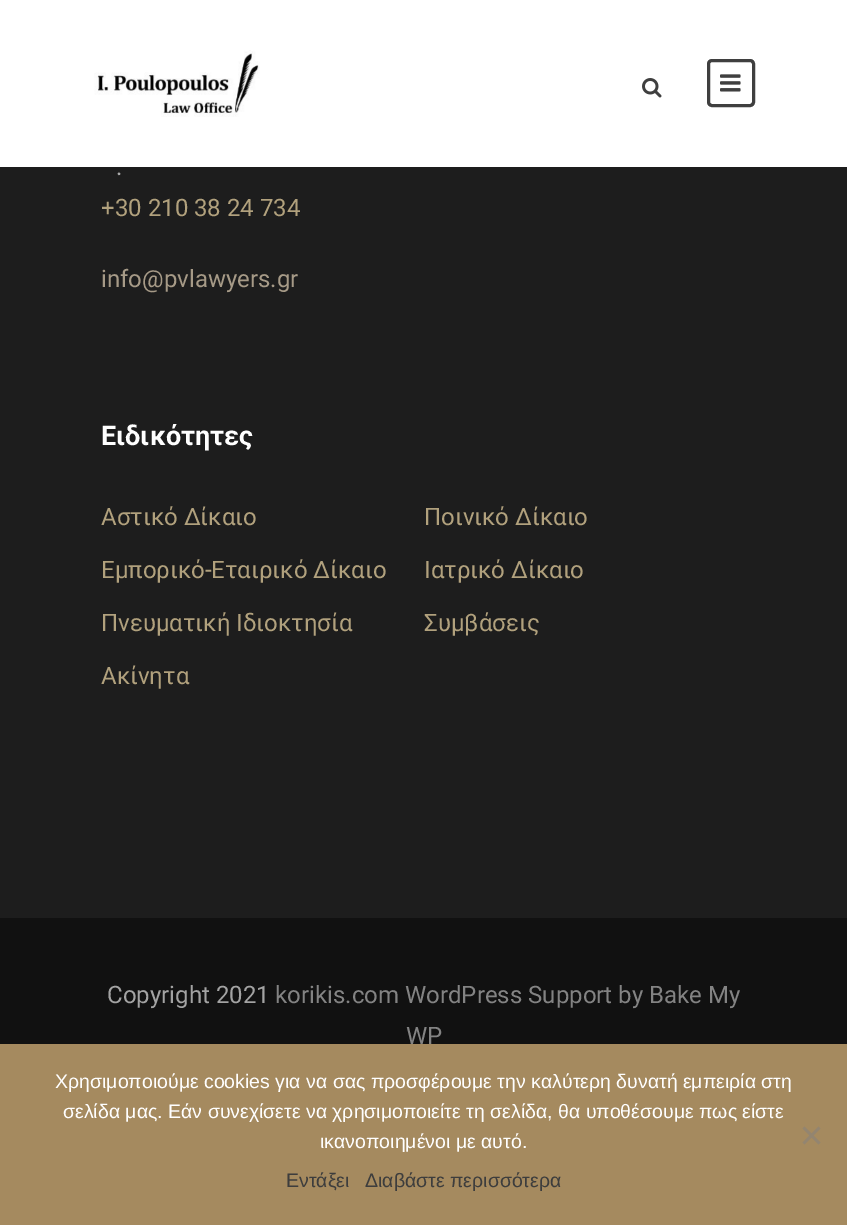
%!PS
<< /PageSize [847 1225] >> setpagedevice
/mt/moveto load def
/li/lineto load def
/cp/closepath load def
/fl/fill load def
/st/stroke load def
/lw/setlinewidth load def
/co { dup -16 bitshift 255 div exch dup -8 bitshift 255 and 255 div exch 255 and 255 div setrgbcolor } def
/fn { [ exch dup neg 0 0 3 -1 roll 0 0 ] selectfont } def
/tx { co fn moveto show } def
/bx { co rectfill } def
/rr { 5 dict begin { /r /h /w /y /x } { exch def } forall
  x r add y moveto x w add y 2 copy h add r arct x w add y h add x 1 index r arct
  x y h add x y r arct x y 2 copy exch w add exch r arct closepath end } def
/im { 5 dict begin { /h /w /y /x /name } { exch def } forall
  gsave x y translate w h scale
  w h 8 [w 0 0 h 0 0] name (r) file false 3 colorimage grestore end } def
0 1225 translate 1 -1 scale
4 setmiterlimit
0 0 847 1225 16#1D1D1D bx
0 0 847 167 16#FFFFFF bx
(media/1.raw) 94 50 166 67 im
(media/2.raw) 642 78 20 20 im
16#3F3F3F co
3 lw
708.5 60.5 45 45 3.5 rr st
(media/3.raw) 720 74 21 18 im
0 918 847 126 16#111111 bx
0 1044 847 181 16#A58A5F bx
16#938570 co
818.5 1126.5 mt 820.5 1128.5 li 804.5 1144.5 li 802.5 1142.5 li cp fl
802.5 1128.5 mt 804.5 1126.5 li 820.5 1142.5 li 818.5 1144.5 li cp fl
(.) 116 175 /Roboto-Regular 24 16#ABABAB tx
(+30 210 38 24 734) 101 216 /Roboto-Regular 24 16#B1A17D tx
(info@pvlawyers.gr) 101 287 /Roboto-Regular 24 16#A69A87 tx
(Ειδικότητες) 101 445 /Roboto-Bold 27 16#FFFFFF tx
(Αστικό Δίκαιο) 101 525 /Roboto-Regular 24 16#B1A17D tx
(Ποινικό Δίκαιο) 424 525 /Roboto-Regular 24 16#B1A17D tx
(Εμπορικό-Εταιρικό Δίκαιο) 101 578 /Roboto-Regular 24 16#B1A17D tx
(Ιατρικό Δίκαιο) 424 578 /Roboto-Regular 24 16#B1A17D tx
(Πνευματική Ιδιοκτησία) 101 631 /Roboto-Regular 24 16#B1A17D tx
(Συμβάσεις) 424 631 /Roboto-Regular 24 16#B1A17D tx
(Ακίνητα) 101 684 /Roboto-Regular 24 16#B1A17D tx
(Copyright 2021) 107 1003 /Roboto-Regular 24 16#A3A3A3 tx
(korikis.com WordPress Support by Bake My) 275 1003 /Roboto-Regular 24 16#838383 tx
(WP) 406 1044 /Roboto-Regular 24 16#838383 tx
(Χρησιμοποιούμε cookies για να σας προσφέρουμε την καλύτερη δυνατή εμπειρία στη) 55 1088 /LiberationSans-Regular 19.5 16#FFFFFF tx
(σελίδα μας. Εάν συνεχίσετε να χρησιμοποιείτε τη σελίδα, θα υποθέσουμε πως είστε) 63 1118 /LiberationSans-Regular 19.5 16#FFFFFF tx
(ικανοποιημένοι με αυτό.) 320 1148 /LiberationSans-Regular 19.5 16#FFFFFF tx
(Εντάξει) 286 1187 /LiberationSans-Regular 19.5 16#3D3D3D tx
(Διαβάστε περισσότερα) 365 1187 /LiberationSans-Regular 19.5 16#3D3D3D tx
showpage
